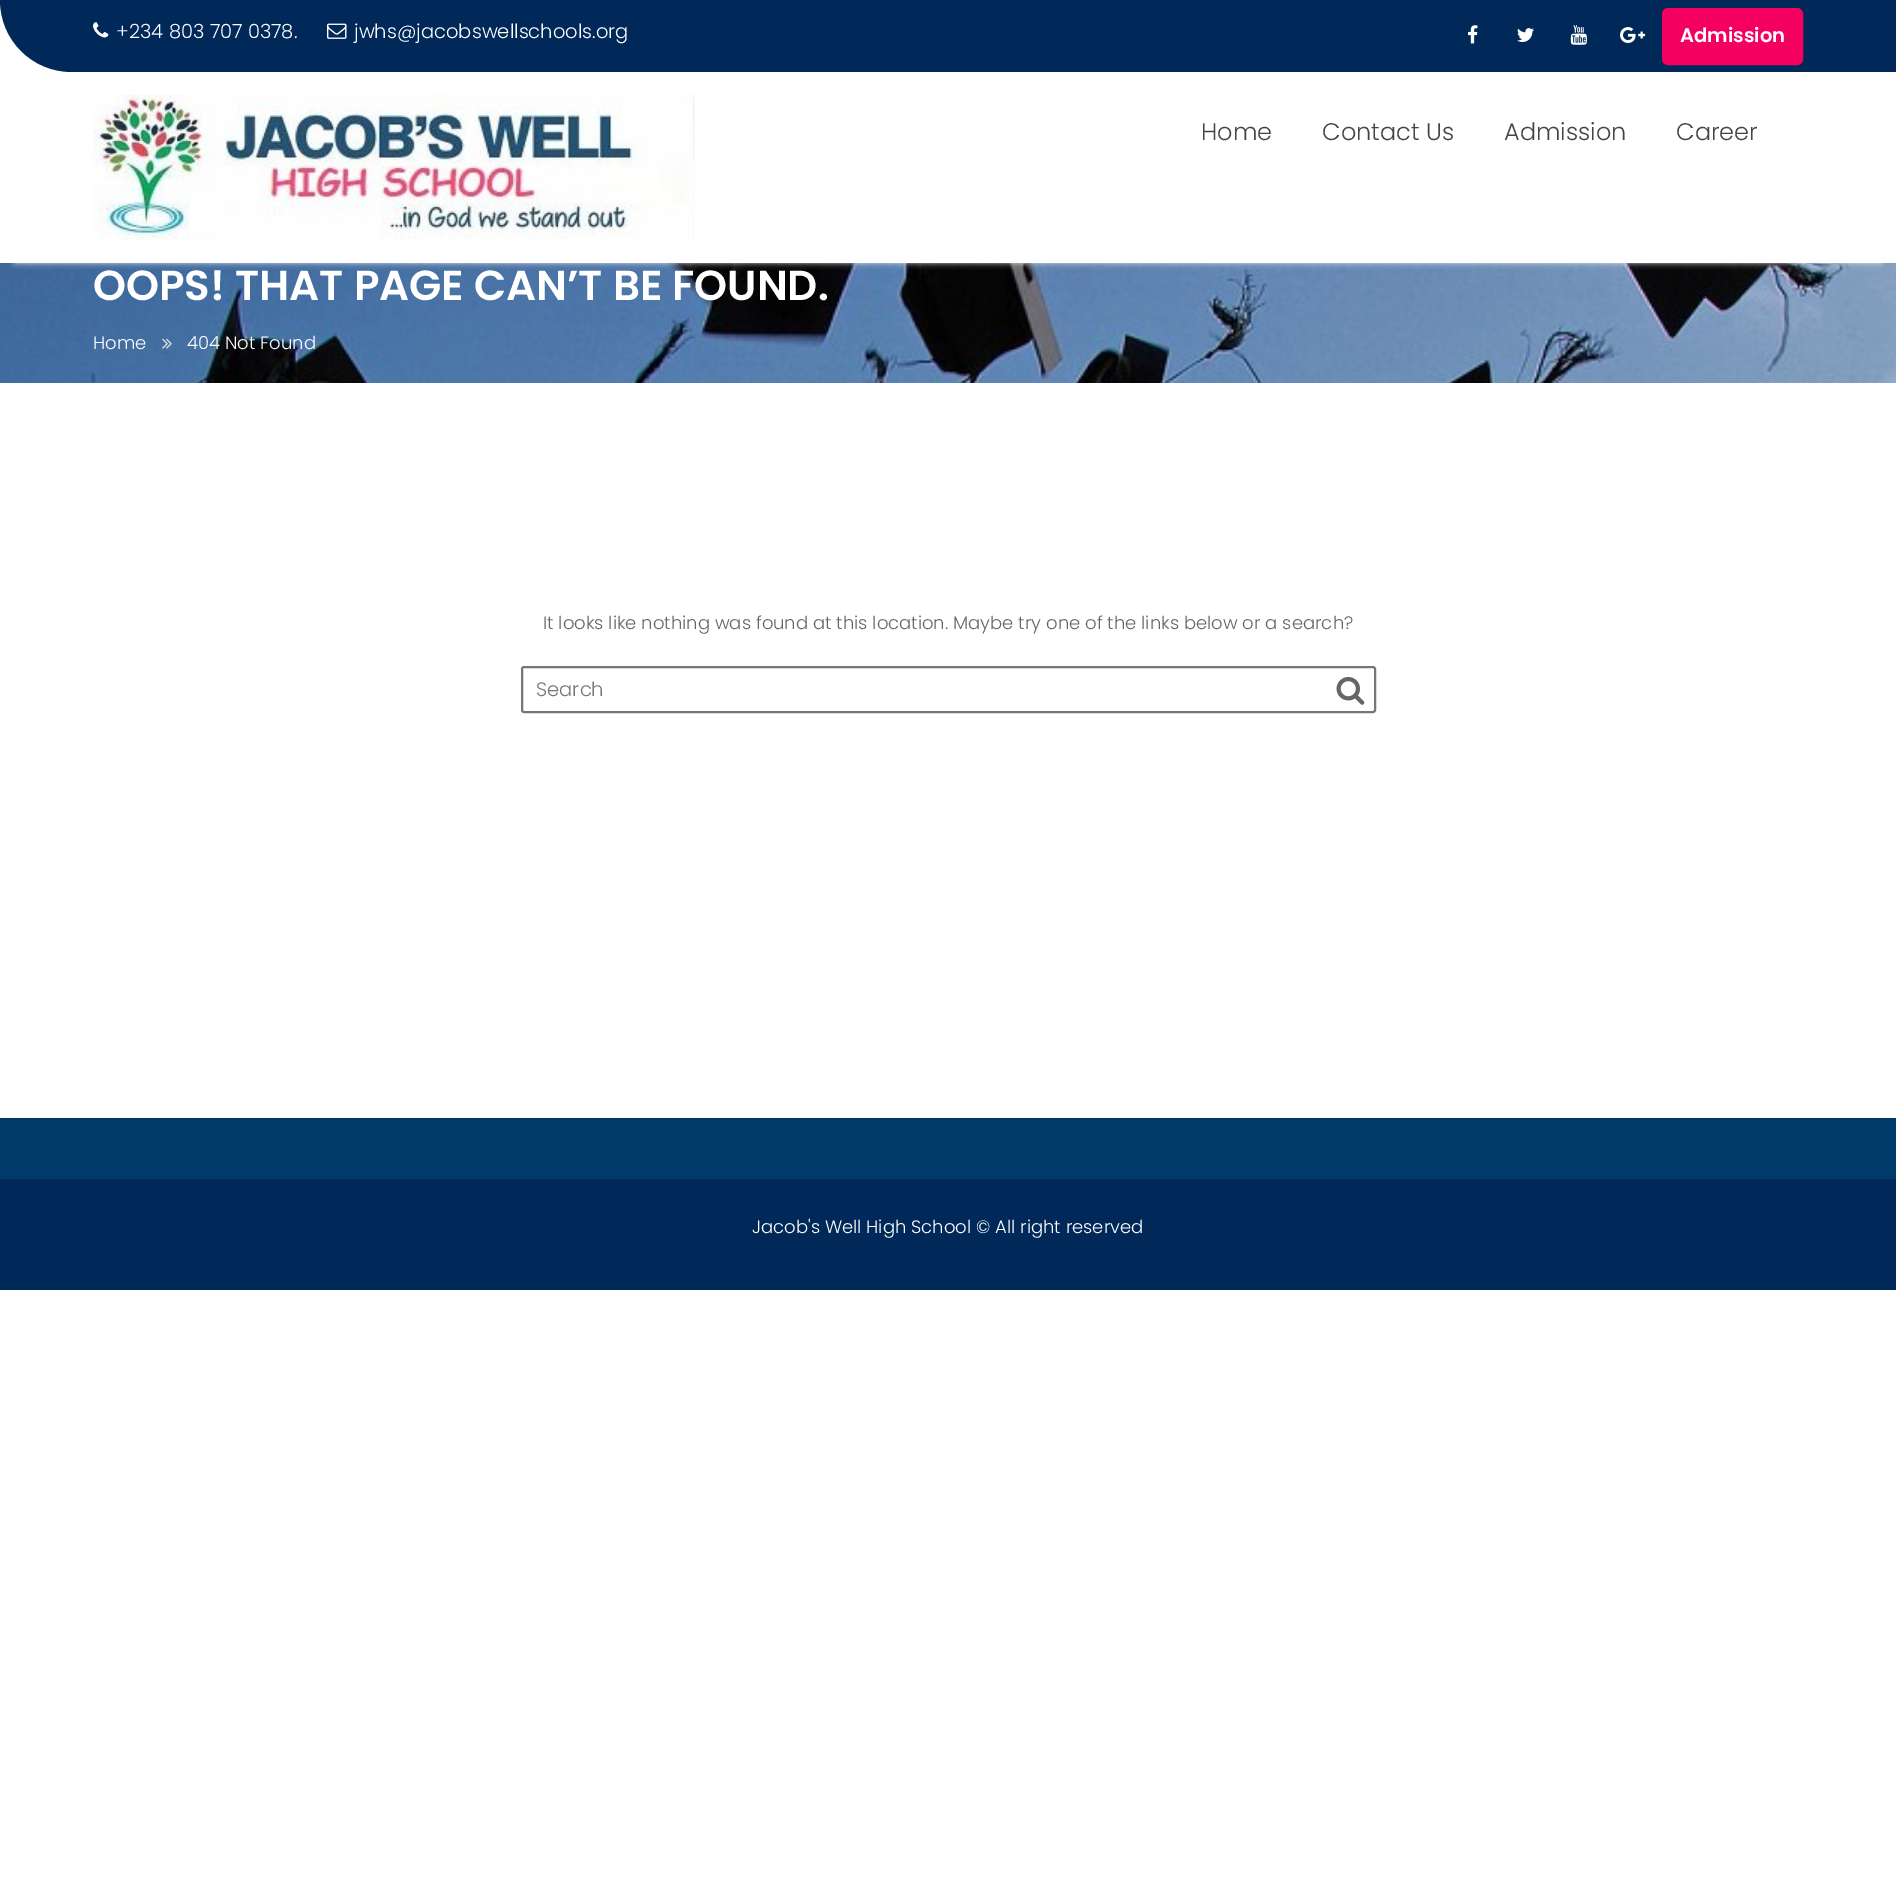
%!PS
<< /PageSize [1896 1886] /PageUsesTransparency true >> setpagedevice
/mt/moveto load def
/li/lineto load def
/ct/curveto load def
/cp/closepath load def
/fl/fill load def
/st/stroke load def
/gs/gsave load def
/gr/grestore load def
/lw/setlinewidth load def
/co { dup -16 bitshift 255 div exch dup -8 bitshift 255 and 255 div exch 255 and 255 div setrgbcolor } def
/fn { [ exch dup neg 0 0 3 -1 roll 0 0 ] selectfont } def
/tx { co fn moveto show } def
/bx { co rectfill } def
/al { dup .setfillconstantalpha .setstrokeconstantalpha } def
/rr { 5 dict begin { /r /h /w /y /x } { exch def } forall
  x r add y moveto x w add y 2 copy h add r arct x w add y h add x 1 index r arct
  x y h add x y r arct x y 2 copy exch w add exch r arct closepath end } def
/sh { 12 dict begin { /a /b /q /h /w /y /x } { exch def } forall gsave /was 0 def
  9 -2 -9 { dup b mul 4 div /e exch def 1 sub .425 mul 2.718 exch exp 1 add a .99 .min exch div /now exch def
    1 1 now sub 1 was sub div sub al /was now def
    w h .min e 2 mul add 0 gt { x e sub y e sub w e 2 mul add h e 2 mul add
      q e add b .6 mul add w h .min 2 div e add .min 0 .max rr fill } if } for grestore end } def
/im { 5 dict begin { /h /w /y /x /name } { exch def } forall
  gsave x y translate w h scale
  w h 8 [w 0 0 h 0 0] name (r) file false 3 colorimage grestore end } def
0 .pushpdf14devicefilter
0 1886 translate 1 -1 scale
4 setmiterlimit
0 0 1896 1886 16#FFFFFF bx
16#002858 co
0 0 mt 1896 0 li 1896 72 li 72 72 li 32 72 0 40 0 0 ct cp fl
(media/1.raw) 93 22 16 16 im
(media/2.raw) 327 23 20 16 im
(media/3.raw) 1468 25 10 19 im
(media/4.raw) 1517 28 17 14 im
(media/5.raw) 1570 25 17 20 im
(media/6.raw) 1620 27 26 16 im
16#F40061 co
1663.5 9.5 138 54 4.5 rr gs fl gr
3 lw
st
(media/8.raw) 0 263 1896 120 im
16#EEEEEE co
15 102 1866 161 0 3 .9 sh
12 99 1872 164 16#FFFFFF bx
(media/7.raw) 93 94 602 146 im
(media/9.raw) 162 338 10 11 im
16#767676 co
2 lw
522 667 853 45 2 rr st
(media/10.raw) 1336 676 29 29 im
0 1118 1896 61 16#003A6A bx
0 1179 1896 111 16#002858 bx
(+234 803 707 0378.) 116 38 /Poppins-Light 19.5 16#FFFFFF tx
(jwhs@jacobswellschools.org) 354 38 /Poppins-Light 19.5 16#FFFFFF tx
(Admission) 1680 42 /Poppins-SemiBold 19.5 16#FFFFFF tx
(Home) 1201 140 /Poppins-Light 24 16#444444 tx
(Contact Us) 1322 140 /Poppins-Light 24 16#444444 tx
(Admission) 1504 140 /Poppins-Light 24 16#444444 tx
(Career) 1676 140 /Poppins-Light 24 16#444444 tx
(OOPS! THAT PAGE CAN’T BE FOUND.) 93 300 /Poppins-SemiBold 42 16#FFFFFF tx
(Home) 93 349 /Poppins-Light 18 16#FFFFFF tx
(404 Not Found) 187 349 /Poppins-Light 18 16#FFFFFF tx
(It looks like nothing was found at this location. Maybe try one of the links below or a search?) 543 629 /Poppins-Light 18 16#666666 tx
(Search) 536 696 /Poppins-Light 19.5 16#757575 tx
(Jacob's Well High School © All right reserved) 752 1233 /Poppins-Light 18 16#FFFFFF tx
.poppdf14devicefilter showpage
